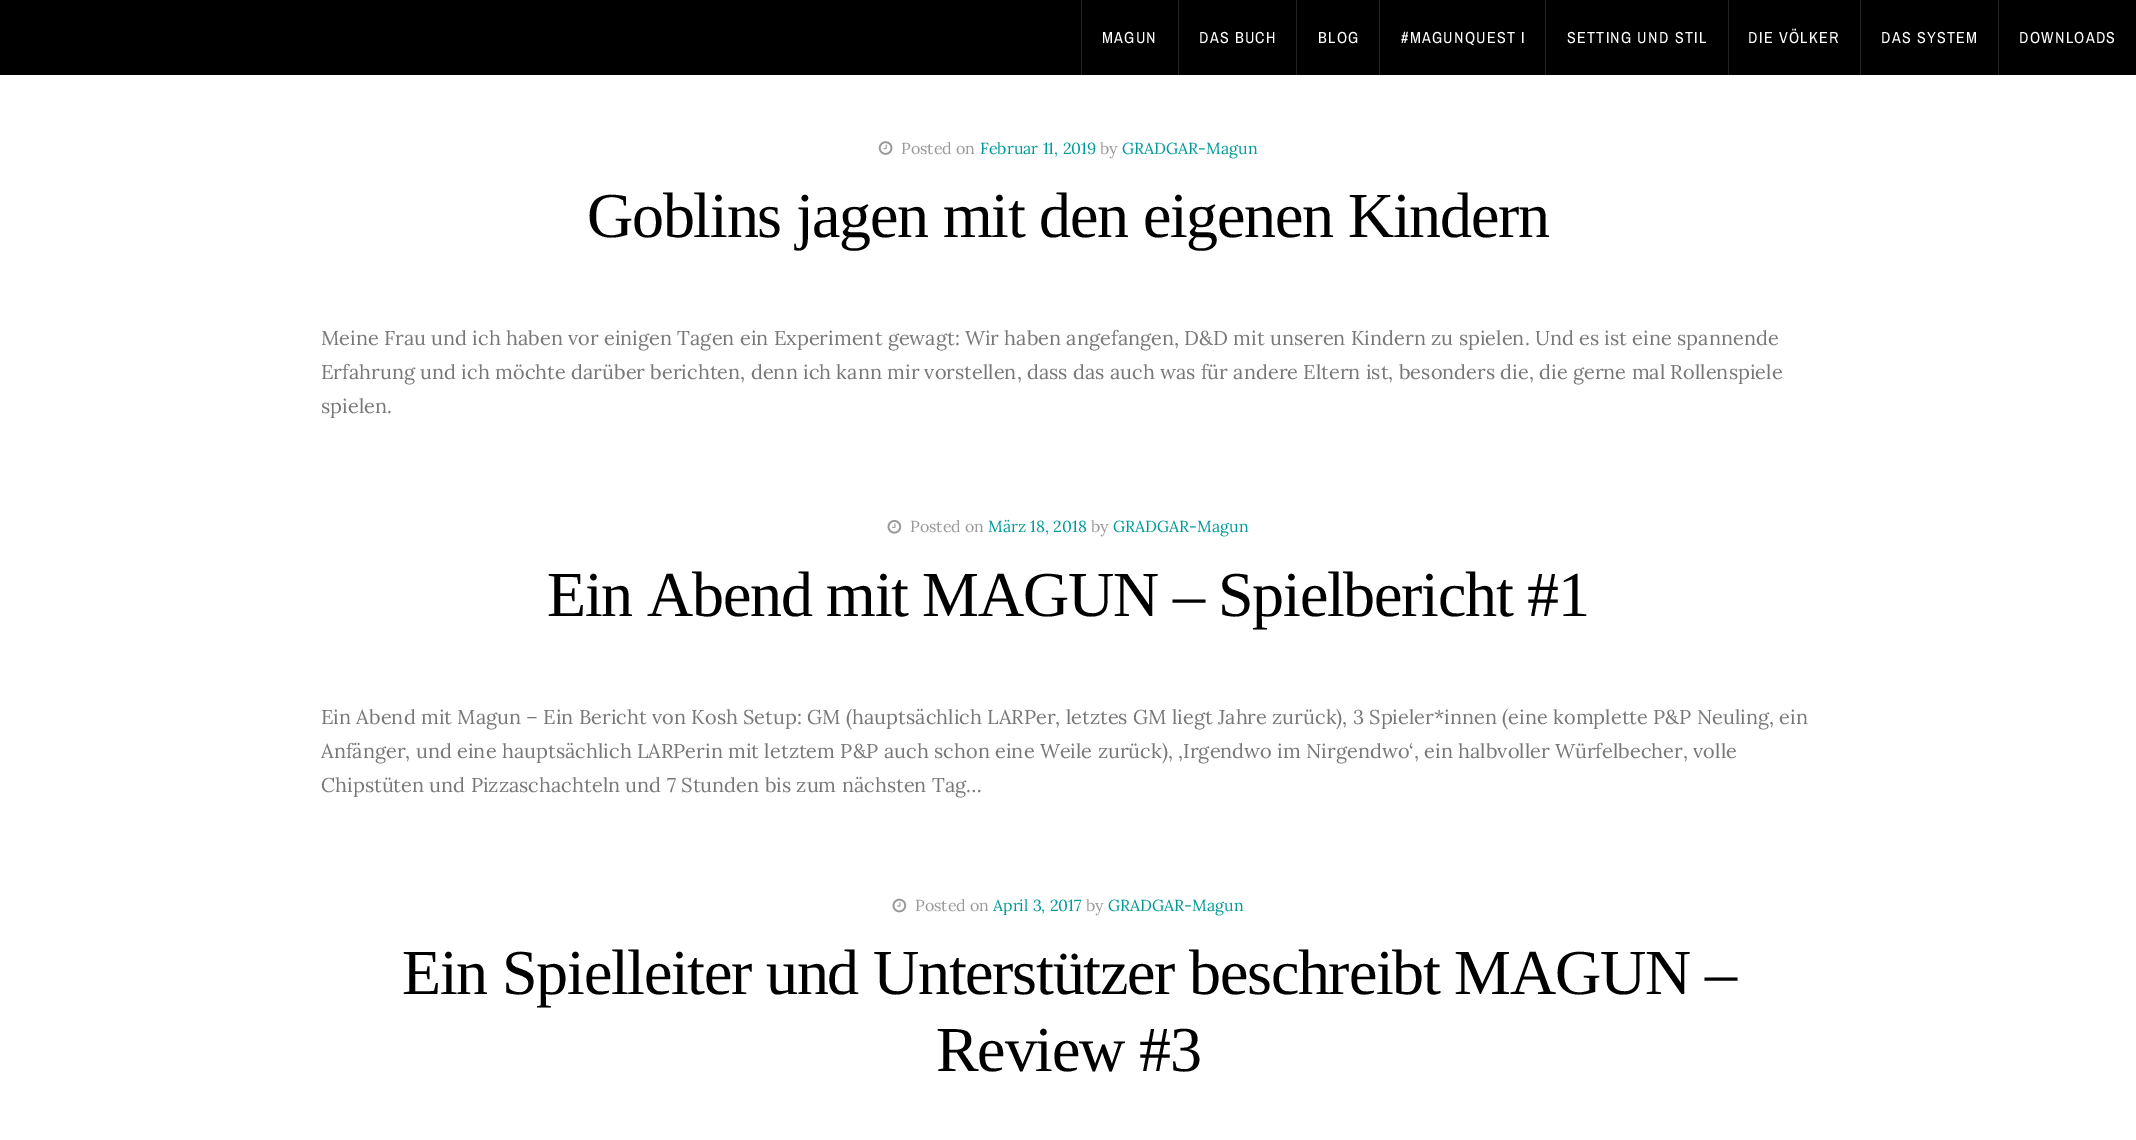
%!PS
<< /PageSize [2136 1140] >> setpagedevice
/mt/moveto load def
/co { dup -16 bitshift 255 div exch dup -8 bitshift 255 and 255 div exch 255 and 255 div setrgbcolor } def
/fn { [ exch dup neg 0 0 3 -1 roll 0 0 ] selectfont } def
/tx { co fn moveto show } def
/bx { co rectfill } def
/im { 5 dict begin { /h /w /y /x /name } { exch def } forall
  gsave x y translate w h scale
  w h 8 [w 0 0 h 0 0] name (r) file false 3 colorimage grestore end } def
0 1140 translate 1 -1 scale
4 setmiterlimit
0 0 2136 1140 16#FFFFFF bx
0 0 2136 75 16#000000 bx
1081 0 1 75 16#222222 bx
1178 0 1 75 16#222222 bx
1296 0 1 75 16#222222 bx
1379 0 1 75 16#222222 bx
1545 0 1 75 16#222222 bx
1728 0 1 75 16#222222 bx
1860 0 1 75 16#222222 bx
1998 0 1 75 16#222222 bx
(media/1.raw) 878 141 15 14 im
(media/2.raw) 887 519 15 15 im
(media/3.raw) 892 898 15 15 im
/ArchivoNarrow-Regular 16 fn
16#FFFFFF co
1102 43 mt 1.25 0 (MAGUN) ashow
1199 43 mt 1.25 0 (DAS BUCH) ashow
1318 43 mt 1.25 0 (BLOG) ashow
1401 43 mt 1.25 0 (#MAGUNQUEST I) ashow
1567 43 mt 1.25 0 (SETTING UND STIL) ashow
1748 43 mt 1.25 0 (DIE VÖLKER) ashow
1881 43 mt 1.25 0 (DAS SYSTEM) ashow
2019 43 mt 1.25 0 (DOWNLOADS) ashow
(Posted on) 901 154 /Lora-Regular 16 16#999999 tx
(Februar 11, 2019) 980 154 /Lora-Regular 16 16#009999 tx
(by) 1100 154 /Lora-Regular 16 16#999999 tx
(GRADGAR-Magun) 1122 154 /Lora-Regular 16 16#009999 tx
/LiberationSerif-Regular 64 fn
16#000000 co
587 237 mt -1.25 0 (Goblins jagen mit den eigenen Kindern) ashow
(Meine Frau und ich haben vor einigen Tagen ein Experiment gewagt: Wir haben angefangen, D&D mit unseren Kindern zu spielen. Und es ist eine spannende) 321 345 /Lora-Regular 20 16#777777 tx
(Erfahrung und ich möchte darüber berichten, denn ich kann mir vorstellen, dass das auch was für andere Eltern ist, besonders die, die gerne mal Rollenspiele) 321 379 /Lora-Regular 20 16#777777 tx
(spielen.) 321 413 /Lora-Regular 20 16#777777 tx
(Posted on) 910 532 /Lora-Regular 16 16#999999 tx
(März 18, 2018) 988 532 /Lora-Regular 16 16#009999 tx
(by) 1091 532 /Lora-Regular 16 16#999999 tx
(GRADGAR-Magun) 1113 532 /Lora-Regular 16 16#009999 tx
/LiberationSerif-Regular 64 fn
16#000000 co
547 616 mt -1.25 0 (Ein Abend mit MAGUN – Spielbericht #1) ashow
(Ein Abend mit Magun – Ein Bericht von Kosh Setup: GM \(hauptsächlich LARPer, letztes GM liegt Jahre zurück\), 3 Spieler*innen \(eine komplette P&P Neuling, ein) 321 724 /Lora-Regular 20 16#777777 tx
(Anfänger, und eine hauptsächlich LARPerin mit letztem P&P auch schon eine Weile zurück\), ‚Irgendwo im Nirgendwo‘, ein halbvoller Würfelbecher, volle) 321 758 /Lora-Regular 20 16#777777 tx
(Chipstüten und Pizzaschachteln und 7 Stunden bis zum nächsten Tag…) 321 792 /Lora-Regular 20 16#777777 tx
(Posted on) 915 911 /Lora-Regular 16 16#999999 tx
(April 3, 2017) 993 911 /Lora-Regular 16 16#009999 tx
(by) 1086 911 /Lora-Regular 16 16#999999 tx
(GRADGAR-Magun) 1108 911 /Lora-Regular 16 16#009999 tx
/LiberationSerif-Regular 64 fn
16#000000 co
402 994 mt -1.25 0 (Ein Spielleiter und Unterstützer beschreibt MAGUN –) ashow
936 1071 mt -1.25 0 (Review #3) ashow
showpage
